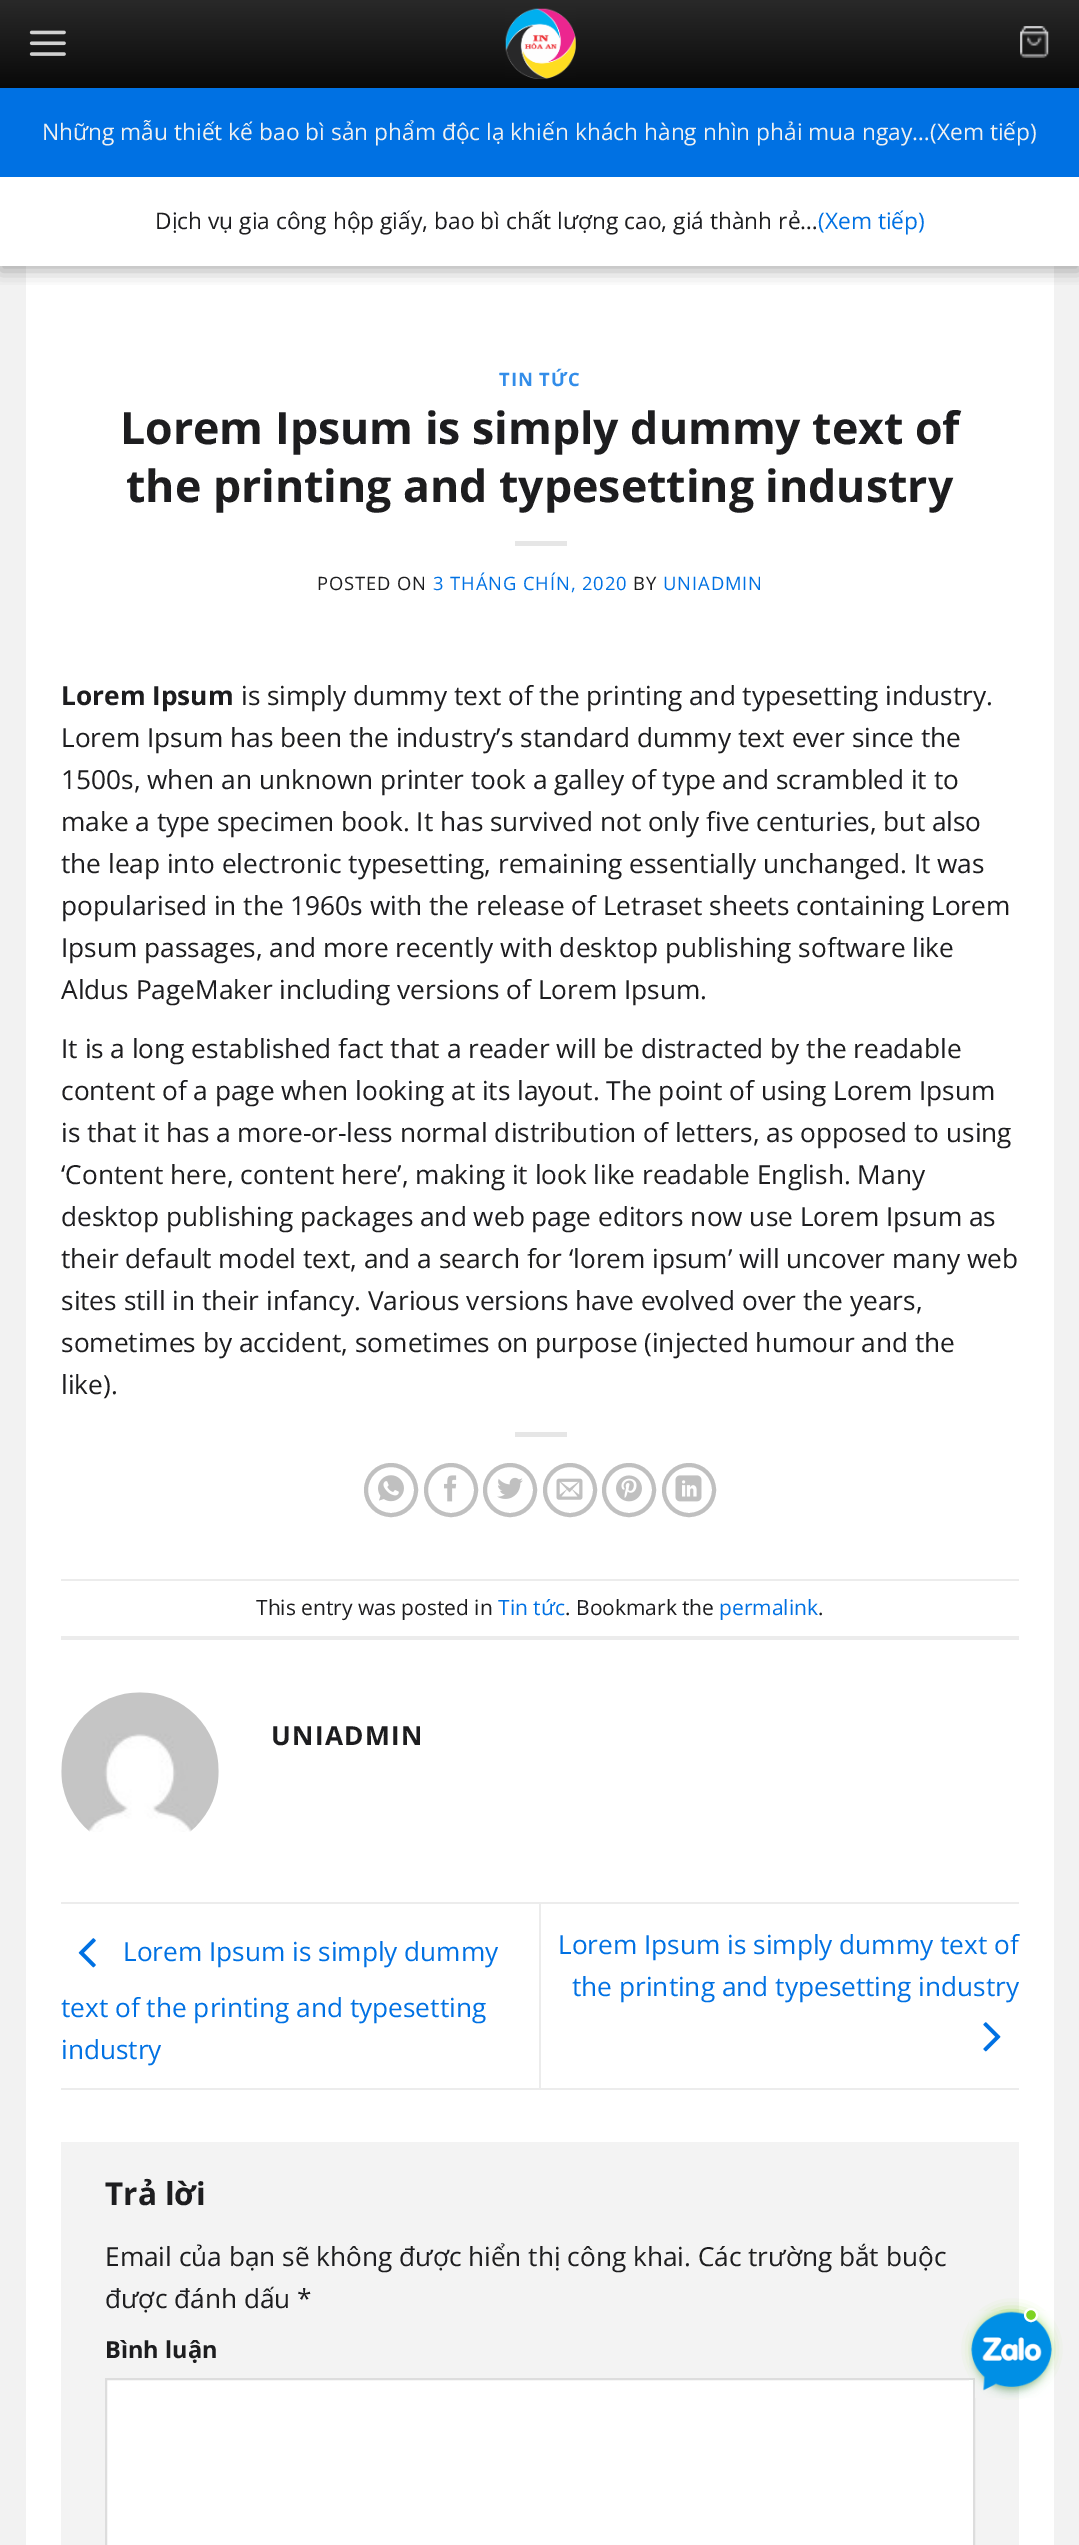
%!PS
<< /PageSize [1079 2545] /PageUsesTransparency true >> setpagedevice
/mt/moveto load def
/li/lineto load def
/cp/closepath load def
/fl/fill load def
/st/stroke load def
/gs/gsave load def
/gr/grestore load def
/lw/setlinewidth load def
/co { dup -16 bitshift 255 div exch dup -8 bitshift 255 and 255 div exch 255 and 255 div setrgbcolor } def
/fn { [ exch dup neg 0 0 3 -1 roll 0 0 ] selectfont } def
/tx { co fn moveto show } def
/bx { co rectfill } def
/al { dup .setfillconstantalpha .setstrokeconstantalpha } def
/ci { newpath 0 360 arc closepath } def
/rr { 5 dict begin { /r /h /w /y /x } { exch def } forall
  x r add y moveto x w add y 2 copy h add r arct x w add y h add x 1 index r arct
  x y h add x y r arct x y 2 copy exch w add exch r arct closepath end } def
/sh { 12 dict begin { /a /b /q /h /w /y /x } { exch def } forall gsave /was 0 def
  9 -2 -9 { dup b mul 4 div /e exch def 1 sub .425 mul 2.718 exch exp 1 add a .99 .min exch div /now exch def
    1 1 now sub 1 was sub div sub al /was now def
    w h .min e 2 mul add 0 gt { x e sub y e sub w e 2 mul add h e 2 mul add
      q e add b .6 mul add w h .min 2 div e add .min 0 .max rr fill } if } for grestore end } def
/im { 5 dict begin { /h /w /y /x /name } { exch def } forall
  gsave x y translate w h scale
  w h 8 [w 0 0 h 0 0] name (r) file false 3 colorimage grestore end } def
0 .pushpdf14devicefilter
0 2545 translate 1 -1 scale
4 setmiterlimit
0 0 1079 2545 16#FFFFFF bx
0 266 1079 2279 16#F2F2F2 bx
26 266 1028 2279 16#FFFFFF bx
gs
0 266 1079 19 rectclip
16#000000 co
0 93 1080 178 0 9 .3 sh
gr
gs 0 0 mt 1079 0 li 1079 88 li 0 88 li cp clip newpath
<< /ShadingType 2 /ColorSpace /DeviceRGB /Coords [540 0 540 88] /Extend [true true] /Function << /FunctionType 2 /Domain [0 1] /C0 [.161 .161 .161] /C1 [.035 .035 .035] /N 1 >> >> shfill gr
(media/1.raw) 29 30 37 26 im
(media/2.raw) 505 8 71 71 im
(media/3.raw) 1020 26 29 32 im
0 88 1079 89 16#0071E3 bx
515 541 52 5 16#E6E6E6 bx
515 1432 52 5 16#E6E6E6 bx
16#C0C0C0 co
4 lw
391 1490 25 ci st
(media/4.raw) 378 1475 26 27 im
451 1490 25 ci st
(media/5.raw) 444 1475 13 27 im
510 1490 25 ci st
(media/6.raw) 497 1477 26 22 im
570 1490 25 ci st
(media/7.raw) 556 1478 27 22 im
629 1490 25 ci st
(media/8.raw) 616 1475 26 27 im
689 1490 25 ci st
(media/9.raw) 675 1475 27 27 im
61 1579 958 2 16#ECECEC bx
61 1636 958 4 16#ECECEC bx
(media/10.raw) 61 1692 158 140 im
61 1902 958 2 16#ECECEC bx
61 2088 958 2 16#ECECEC bx
(media/11.raw) 78 1938 18 30 im
539 1904 2 184 16#ECECEC bx
(media/12.raw) 983 2022 18 30 im
61 2142 958 403 16#F3F3F3 bx
16#FFFFFF co
106 2379 mt 974 2379 li 974 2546 li 106 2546 li cp gs fl gr
16#DDDDDD co
2 lw
st
16#7ED321 co
977 2314 70 70 35 7 1 sh
(media/13.raw) 969 2311 85 87 im
1031 2315 6 ci gs fl gr
16#FFFFFF co
st
(Những mẫu thiết kế bao bì sản phẩm độc lạ khiến khách hàng nhìn phải mua ngay…\(Xem tiếp\)) 42 140 /OpenSans-Regular 22.75 16#F1F1F1 tx
(Dịch vụ gia công hộp giấy, bao bì chất lượng cao, giá thành rẻ…) 155 229 /OpenSans-Regular 22.75 16#1D1D1F tx
(\(Xem tiếp\)) 818 229 /OpenSans-Regular 22.75 16#0071E3 tx
/OpenSans-Bold 18.4 fn
16#338DE9 co
499 386 mt .9 0 (TIN TỨC) ashow
(Lorem Ipsum is simply dummy text of) 120 444 /OpenSans-Bold 44.6 16#1D1D1F tx
(the printing and typesetting industry) 126 502 /OpenSans-Bold 44.6 16#1D1D1F tx
/OpenSans-Regular 18.4 fn
317 590 mt .9 0 (POSTED ON) ashow
16#0071E3 co
433 590 mt .9 0 (3 THÁNG CHÍN, 2020) ashow
16#1D1D1F co
633 590 mt .9 0 (BY) ashow
16#0071E3 co
663 590 mt .9 0 (UNIADMIN) ashow
(Lorem Ipsum) 61 705 /OpenSans-Bold 26.25 16#1D1D1F tx
(is simply dummy text of the printing and typesetting industry.) 241 705 /OpenSans-Regular 26.25 16#1D1D1F tx
(Lorem Ipsum has been the industry’s standard dummy text ever since the) 61 747 /OpenSans-Regular 26.25 16#1D1D1F tx
(1500s, when an unknown printer took a galley of type and scrambled it to) 61 789 /OpenSans-Regular 26.25 16#1D1D1F tx
(make a type specimen book. It has survived not only five centuries, but also) 61 831 /OpenSans-Regular 26.25 16#1D1D1F tx
(the leap into electronic typesetting, remaining essentially unchanged. It was) 61 873 /OpenSans-Regular 26.25 16#1D1D1F tx
(popularised in the 1960s with the release of Letraset sheets containing Lorem) 61 915 /OpenSans-Regular 26.25 16#1D1D1F tx
(Ipsum passages, and more recently with desktop publishing software like) 61 957 /OpenSans-Regular 26.25 16#1D1D1F tx
(Aldus PageMaker including versions of Lorem Ipsum.) 61 999 /OpenSans-Regular 26.25 16#1D1D1F tx
(It is a long established fact that a reader will be distracted by the readable) 61 1058 /OpenSans-Regular 26.25 16#1D1D1F tx
(content of a page when looking at its layout. The point of using Lorem Ipsum) 61 1100 /OpenSans-Regular 26.25 16#1D1D1F tx
(is that it has a more-or-less normal distribution of letters, as opposed to using) 61 1142 /OpenSans-Regular 26.25 16#1D1D1F tx
(‘Content here, content here’, making it look like readable English. Many) 61 1184 /OpenSans-Regular 26.25 16#1D1D1F tx
(desktop publishing packages and web page editors now use Lorem Ipsum as) 61 1226 /OpenSans-Regular 26.25 16#1D1D1F tx
(their default model text, and a search for ‘lorem ipsum’ will uncover many web) 61 1268 /OpenSans-Regular 26.25 16#1D1D1F tx
(sites still in their infancy. Various versions have evolved over the years,) 61 1310 /OpenSans-Regular 26.25 16#1D1D1F tx
(sometimes by accident, sometimes on purpose \(injected humour and the) 61 1352 /OpenSans-Regular 26.25 16#1D1D1F tx
(like\).) 61 1394 /OpenSans-Regular 26.25 16#1D1D1F tx
(This entry was posted in) 256 1615 /OpenSans-Regular 21 16#1D1D1F tx
(Tin tức) 498 1615 /OpenSans-Regular 21 16#0071E3 tx
(. Bookmark the) 565 1615 /OpenSans-Regular 21 16#1D1D1F tx
(permalink) 719 1615 /OpenSans-Regular 21 16#0071E3 tx
(.) 818 1615 /OpenSans-Regular 21 16#1D1D1F tx
/OpenSans-Bold 26.25 fn
271 1745 mt 1.25 0 (UNIADMIN) ashow
(Lorem Ipsum is simply dummy) 123 1961 /OpenSans-Regular 26.25 16#0071E3 tx
(text of the printing and typesetting) 61 2017 /OpenSans-Regular 26.25 16#0071E3 tx
(industry) 61 2059 /OpenSans-Regular 26.25 16#0071E3 tx
(Lorem Ipsum is simply dummy text of) 558 1954 /OpenSans-Regular 26.25 16#0071E3 tx
(the printing and typesetting industry) 572 1996 /OpenSans-Regular 26.25 16#0071E3 tx
(Trả lời) 105 2205 /OpenSans-Bold 31.5 16#1D1D1F tx
(Email của bạn sẽ không được hiển thị công khai. Các trường bắt buộc) 105 2266 /OpenSans-Regular 26.25 16#1D1D1F tx
(được đánh dấu *) 105 2308 /OpenSans-Regular 26.25 16#1D1D1F tx
(Bình luận) 105 2358 /OpenSans-Bold 23.5 16#1D1D1F tx
.poppdf14devicefilter showpage
